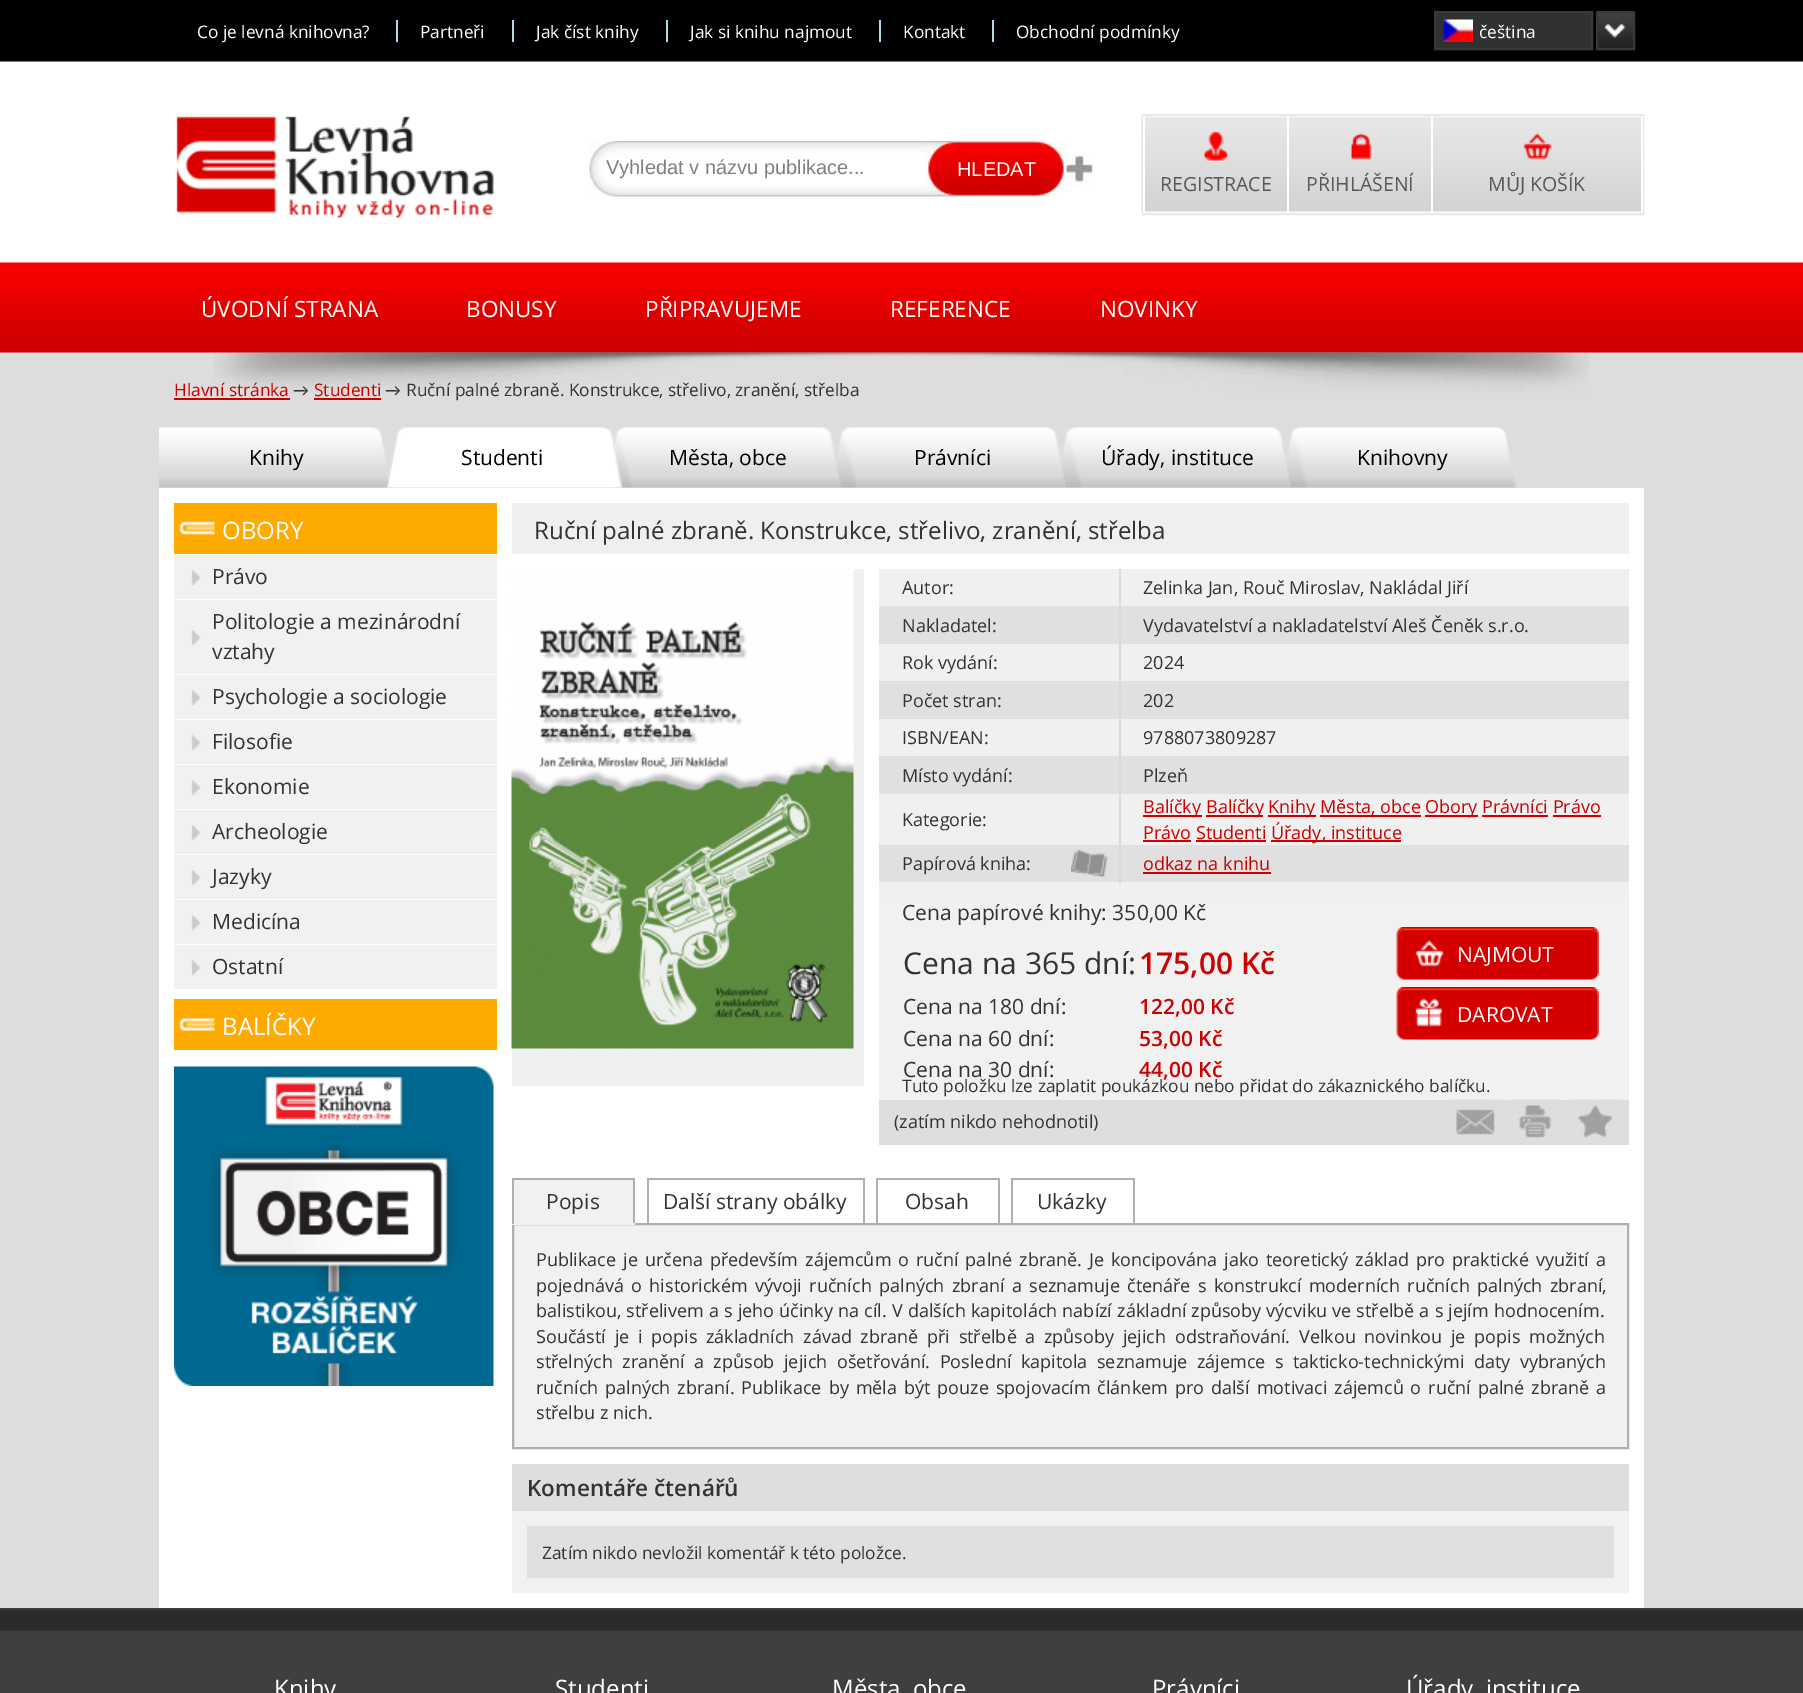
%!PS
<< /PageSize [1803 1693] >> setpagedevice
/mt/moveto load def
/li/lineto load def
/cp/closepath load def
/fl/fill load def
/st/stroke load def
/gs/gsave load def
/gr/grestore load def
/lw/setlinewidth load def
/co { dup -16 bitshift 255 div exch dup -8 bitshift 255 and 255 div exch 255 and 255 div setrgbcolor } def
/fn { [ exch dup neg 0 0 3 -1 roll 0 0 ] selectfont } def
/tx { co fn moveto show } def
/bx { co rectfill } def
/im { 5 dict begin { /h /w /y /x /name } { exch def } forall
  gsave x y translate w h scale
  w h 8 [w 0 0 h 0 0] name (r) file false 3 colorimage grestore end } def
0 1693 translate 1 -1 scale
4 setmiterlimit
0 0 1803 1693 16#DDDDDD bx
(media/1.raw) 0 0 1803 353 im
396 20 2 22 16#AEDCE9 bx
512 20 2 22 16#AEDCE9 bx
666 20 2 22 16#AEDCE9 bx
879 20 2 22 16#AEDCE9 bx
992 20 2 22 16#AEDCE9 bx
1436 13 155 35 16#313131 bx
(media/2.raw) 1443 19 30 23 im
16#393939 co
2 lw
1435 12 157 37 rectstroke
(media/3.raw) 1598 13 35 35 im
1597 12 37 37 rectstroke
(media/4.raw) 176 116 318 102 im
(media/5.raw) 589 141 504 56 im
(media/6.raw) 1141 115 500 98 im
16#E8E8E8 co
1143 115 500 99 rectstroke
(media/7.raw) 1204 131 24 30 im
1143 116 2 97 16#FFFFFF bx
(media/8.raw) 1351 133 21 27 im
1287 116 2 97 16#FFFFFF bx
(media/9.raw) 1523 133 29 27 im
1642 116 1 97 16#FFFFFF bx
1431 116 2 97 16#FFFFFF bx
(media/10.raw) 213 352 1377 41 im
174 398 116 2 16#CC0000 bx
314 398 67 2 16#CC0000 bx
(media/11.raw) 159 427 233 61 im
(media/13.raw) 612 427 230 61 im
(media/12.raw) 387 427 236 61 im
(media/14.raw) 837 427 230 61 im
(media/15.raw) 1062 427 230 61 im
(media/16.raw) 1287 427 230 61 im
159 488 1485 1120 16#FFFFFF bx
174 503 323 51 16#FFAA00 bx
(media/17.raw) 179 521 36 14 im
174 555 323 44 16#F1F1F1 bx
(media/18.raw) 191 569 10 17 im
174 600 323 74 16#F1F1F1 bx
(media/18.raw) 191 629 10 17 im
174 675 323 44 16#F1F1F1 bx
(media/18.raw) 191 689 10 17 im
174 720 323 44 16#F1F1F1 bx
(media/18.raw) 191 734 10 17 im
174 765 323 44 16#F1F1F1 bx
(media/18.raw) 191 779 10 17 im
174 810 323 44 16#F1F1F1 bx
(media/18.raw) 191 824 10 17 im
174 855 323 44 16#F1F1F1 bx
(media/18.raw) 191 869 10 17 im
174 900 323 44 16#F1F1F1 bx
(media/18.raw) 191 914 10 17 im
174 945 323 44 16#F1F1F1 bx
(media/18.raw) 191 959 10 17 im
174 999 323 51 16#FFAA00 bx
(media/19.raw) 179 1018 36 13 im
(media/20.raw) 174 1066 320 320 im
512 503 1117 51 16#EFEFEF bx
512 569 352 517 16#F0F0F0 bx
(media/21.raw) 511 569 343 480 im
879 569 750 328 16#F0F0F0 bx
879 606 240 38 16#E0E0E0 bx
1121 606 508 38 16#E0E0E0 bx
879 681 240 38 16#E0E0E0 bx
1121 681 508 38 16#E0E0E0 bx
879 756 240 38 16#E0E0E0 bx
1121 756 508 38 16#E0E0E0 bx
1143 815 59 2 16#CC0000 bx
1206 815 57 2 16#CC0000 bx
1268 815 48 2 16#CC0000 bx
1320 815 101 2 16#CC0000 bx
1425 815 53 2 16#CC0000 bx
1482 815 66 2 16#CC0000 bx
1553 815 48 2 16#CC0000 bx
1143 840 48 2 16#CC0000 bx
1271 840 130 2 16#CC0000 bx
1196 840 70 2 16#CC0000 bx
879 845 240 37 16#E0E0E0 bx
(media/22.raw) 1071 849 37 29 im
1119 569 2 315 16#DADADA bx
1121 845 508 37 16#E0E0E0 bx
1143 872 128 2 16#CC0000 bx
879 897 750 203 16#F1F1F1 bx
(media/23.raw) 1396 927 203 53 im
(media/24.raw) 1396 987 203 53 im
879 1100 750 45 16#DEDEDE bx
(media/25.raw) 1449 1099 53 36 im
(media/26.raw) 1509 1099 53 42 im
(media/27.raw) 1569 1099 53 39 im
514 1180 119 43 16#F1F1F1 bx
512 1178 123 2 16#AFAFAF bx
16#F1F1F1 co
513 1224 mt 1628 1224 li 1628 1448 li 513 1448 li cp gs fl gr
16#AFAFAF co
st
633 1178 2 46 16#AFAFAF bx
512 1223 123 2 16#F1F1F1 bx
512 1178 2 46 16#AFAFAF bx
647 1178 217 2 16#AFAFAF bx
863 1178 2 45 16#AFAFAF bx
647 1178 2 45 16#AFAFAF bx
876 1178 123 2 16#AFAFAF bx
998 1178 2 45 16#AFAFAF bx
876 1178 2 45 16#AFAFAF bx
1011 1178 123 2 16#AFAFAF bx
1133 1178 2 45 16#AFAFAF bx
1011 1178 2 45 16#AFAFAF bx
512 1511 1117 82 16#F1F1F1 bx
512 1464 1117 47 16#DEDEDE bx
527 1526 1087 52 16#E0E0E0 bx
(media/28.raw) 0 1608 1803 85 im
(Co je levná knihovna?) 197 38 /OpenSans-Regular 17.25 16#FFFFFF tx
(Partneři) 420 38 /OpenSans-Regular 17.25 16#FFFFFF tx
(Jak číst knihy) 536 38 /OpenSans-Regular 17.25 16#FFFFFF tx
(Jak si knihu najmout) 690 38 /OpenSans-Regular 17.25 16#FFFFFF tx
(Kontakt) 903 38 /OpenSans-Regular 17.25 16#FFFFFF tx
(Obchodní podmínky) 1016 38 /OpenSans-Regular 17.25 16#FFFFFF tx
(čeština) 1479 38 /OpenSans-Regular 17.25 16#FFFFFF tx
(Vyhledat v názvu publikace...) 606 174 /LiberationSans-Regular 20 16#808080 tx
(HLEDAT) 957 176 /LiberationSans-Regular 20 16#FFFFFF tx
(REGISTRACE) 1160 191 /OpenSans-Regular 19.5 16#585858 tx
(PŘIHLÁŠENÍ) 1306 191 /OpenSans-Regular 19.5 16#585858 tx
(MŮJ KOŠÍK) 1488 191 /OpenSans-Regular 19.5 16#585858 tx
(ÚVODNÍ STRANA) 201 317 /OpenSans-Regular 22.5 16#FFFFFF tx
(BONUSY) 466 317 /OpenSans-Regular 22.5 16#FFFFFF tx
(PŘIPRAVUJEME) 645 317 /OpenSans-Regular 22.5 16#FFFFFF tx
(REFERENCE) 890 317 /OpenSans-Regular 22.5 16#FFFFFF tx
(NOVINKY) 1100 317 /OpenSans-Regular 22.5 16#FFFFFF tx
(Hlavní stránka) 174 396 /OpenSans-Regular 17.25 16#CC0000 tx
(→) 293 396 /Carlito-Regular 17.25 16#333333 tx
(Studenti) 314 396 /OpenSans-Regular 17.25 16#CC0000 tx
(→) 385 396 /Carlito-Regular 17.25 16#333333 tx
(Ruční palné zbraně. Konstrukce, střelivo, zranění, střelba) 406 396 /OpenSans-Regular 17.25 16#333333 tx
(Knihy) 249 465 /OpenSans-Regular 21 16#000000 tx
(Studenti) 461 465 /OpenSans-Regular 21 16#000000 tx
(Města, obce) 669 465 /OpenSans-Regular 21 16#000000 tx
(Právníci) 914 465 /OpenSans-Regular 21 16#000000 tx
(Úřady, instituce) 1101 465 /OpenSans-Regular 21 16#000000 tx
(Knihovny) 1357 465 /OpenSans-Regular 21 16#000000 tx
(OBORY) 222 539 /OpenSans-Regular 24 16#FFFFFF tx
(Právo) 212 584 /OpenSans-Regular 21 16#333333 tx
(Politologie a mezinárodní) 212 629 /OpenSans-Regular 21 16#333333 tx
(vztahy) 212 659 /OpenSans-Regular 21 16#333333 tx
(Psychologie a sociologie) 212 704 /OpenSans-Regular 21 16#333333 tx
(Filosofie) 212 749 /OpenSans-Regular 21 16#333333 tx
(Ekonomie) 212 794 /OpenSans-Regular 21 16#333333 tx
(Archeologie) 212 839 /OpenSans-Regular 21 16#333333 tx
(Jazyky) 212 884 /OpenSans-Regular 21 16#333333 tx
(Medicína) 212 929 /OpenSans-Regular 21 16#333333 tx
(Ostatní) 212 974 /OpenSans-Regular 21 16#333333 tx
(BALÍČKY) 222 1035 /OpenSans-Regular 24 16#FFFFFF tx
(Ruční palné zbraně. Konstrukce, střelivo, zranění, střelba) 534 539 /OpenSans-Regular 24 16#333333 tx
(Autor:) 902 594 /OpenSans-Regular 18 16#333333 tx
(Zelinka Jan, Rouč Miroslav, Nakládal Jiří) 1143 594 /OpenSans-Regular 18 16#333333 tx
(Nakladatel:) 902 632 /OpenSans-Regular 18 16#333333 tx
(Vydavatelství a nakladatelství Aleš Čeněk s.r.o.) 1143 632 /OpenSans-Regular 18 16#333333 tx
(Rok vydání:) 902 669 /OpenSans-Regular 18 16#333333 tx
(2024) 1143 669 /OpenSans-Regular 18 16#333333 tx
(Počet stran:) 902 707 /OpenSans-Regular 18 16#333333 tx
(202) 1143 707 /OpenSans-Regular 18 16#333333 tx
(ISBN/EAN:) 902 744 /OpenSans-Regular 18 16#333333 tx
(9788073809287) 1143 744 /OpenSans-Regular 18 16#333333 tx
(Místo vydání:) 902 782 /OpenSans-Regular 18 16#333333 tx
(Plzeň) 1143 782 /OpenSans-Regular 18 16#333333 tx
(Kategorie:) 902 826 /OpenSans-Regular 18 16#333333 tx
(Balíčky) 1143 813 /OpenSans-Regular 18 16#CC0000 tx
(Balíčky) 1206 813 /OpenSans-Regular 18 16#CC0000 tx
(Knihy) 1268 813 /OpenSans-Regular 18 16#CC0000 tx
(Města, obce) 1320 813 /OpenSans-Regular 18 16#CC0000 tx
(Obory Právníci Právo) 1425 813 /OpenSans-Regular 18 16#CC0000 tx
(Právo Studenti) 1143 839 /OpenSans-Regular 18 16#CC0000 tx
(Úřady, instituce) 1271 839 /OpenSans-Regular 18 16#CC0000 tx
(Papírová kniha:) 902 870 /OpenSans-Regular 18 16#333333 tx
(odkaz na knihu) 1143 870 /OpenSans-Regular 18 16#CC0000 tx
(Cena papírové knihy: 350,00 Kč) 902 920 /OpenSans-Regular 21 16#333333 tx
(Cena na 365 dní:) 903 974 /OpenSans-Regular 30 16#333333 tx
(175,00 Kč) 1139 974 /OpenSans-SemiBold 30 16#CC0000 tx
(Cena na 180 dní:) 903 1014 /OpenSans-Regular 21 16#333333 tx
(122,00 Kč) 1139 1014 /OpenSans-SemiBold 21 16#CC0000 tx
(Cena na 60 dní:) 903 1046 /OpenSans-Regular 21 16#333333 tx
(53,00 Kč) 1139 1046 /OpenSans-SemiBold 21 16#CC0000 tx
(Cena na 30 dní:) 903 1077 /OpenSans-Regular 21 16#333333 tx
(44,00 Kč) 1139 1077 /OpenSans-SemiBold 21 16#CC0000 tx
(NAJMOUT) 1457 962 /OpenSans-Regular 21 16#FFFFFF tx
(DAROVAT) 1457 1022 /OpenSans-Regular 21 16#FFFFFF tx
(Tuto položku lze zaplatit poukázkou nebo přidat do zákaznického balíčku.) 902 1092 /OpenSans-Regular 17.25 16#333333 tx
(\(zatím nikdo nehodnotil\)) 894 1128 /OpenSans-Regular 18 16#333333 tx
(Popis) 546 1209 /OpenSans-Regular 21 16#333333 tx
(Další strany obálky) 663 1209 /OpenSans-Regular 21 16#333333 tx
(Obsah) 905 1209 /OpenSans-Regular 21 16#333333 tx
(Ukázky) 1037 1209 /OpenSans-Regular 21 16#333333 tx
/OpenSans-Regular 18 fn
536 1266 mt 2.25 0 32 (Publikace je určena především zájemcům o ruční palné zbraně. Je koncipována jako teoretický základ pro praktické využití a) widthshow
536 1292 mt 2.75 0 32 (pojednává o historickém vývoji ručních palných zbraní a seznamuje čtenáře s konstrukcí moderních ručních palných zbraní,) widthshow
536 1317 mt .4 0 32 (balistikou, střelivem a s jeho účinky na cíl. V dalších kapitolách nabízí základní způsoby výcviku ve střelbě a s jejím hodnocením.) widthshow
536 1343 mt 4 0 32 (Součástí je i popis základních závad zbraně při střelbě a způsoby jejich odstraňování. Velkou novinkou je popis možných) widthshow
536 1368 mt 4.75 0 32 (střelných zranění a způsob jejich ošetřování. Poslední kapitola seznamuje zájemce s takticko-technickými daty vybraných) widthshow
536 1394 mt 2.25 0 32 (ručních palných zbraní. Publikace by měla být pouze spojovacím článkem pro další motivaci zájemců o ruční palné zbraně a) widthshow
(střelbu z nich.) 536 1419 /OpenSans-Regular 18 16#333333 tx
(Komentáře čtenářů) 527 1496 /OpenSans-SemiBold 22.5 16#333333 tx
(Zatím nikdo nevložil komentář k této položce.) 542 1559 /OpenSans-Regular 17.25 16#333333 tx
(Knihy) 274 1697 /OpenSans-Regular 24 16#FFFFFF tx
(Studenti) 555 1697 /OpenSans-Regular 24 16#FFFFFF tx
(Města, obce) 832 1697 /OpenSans-Regular 24 16#FFFFFF tx
(Právníci) 1152 1697 /OpenSans-Regular 24 16#FFFFFF tx
(Úřady, instituce) 1406 1697 /OpenSans-Regular 24 16#FFFFFF tx
showpage
